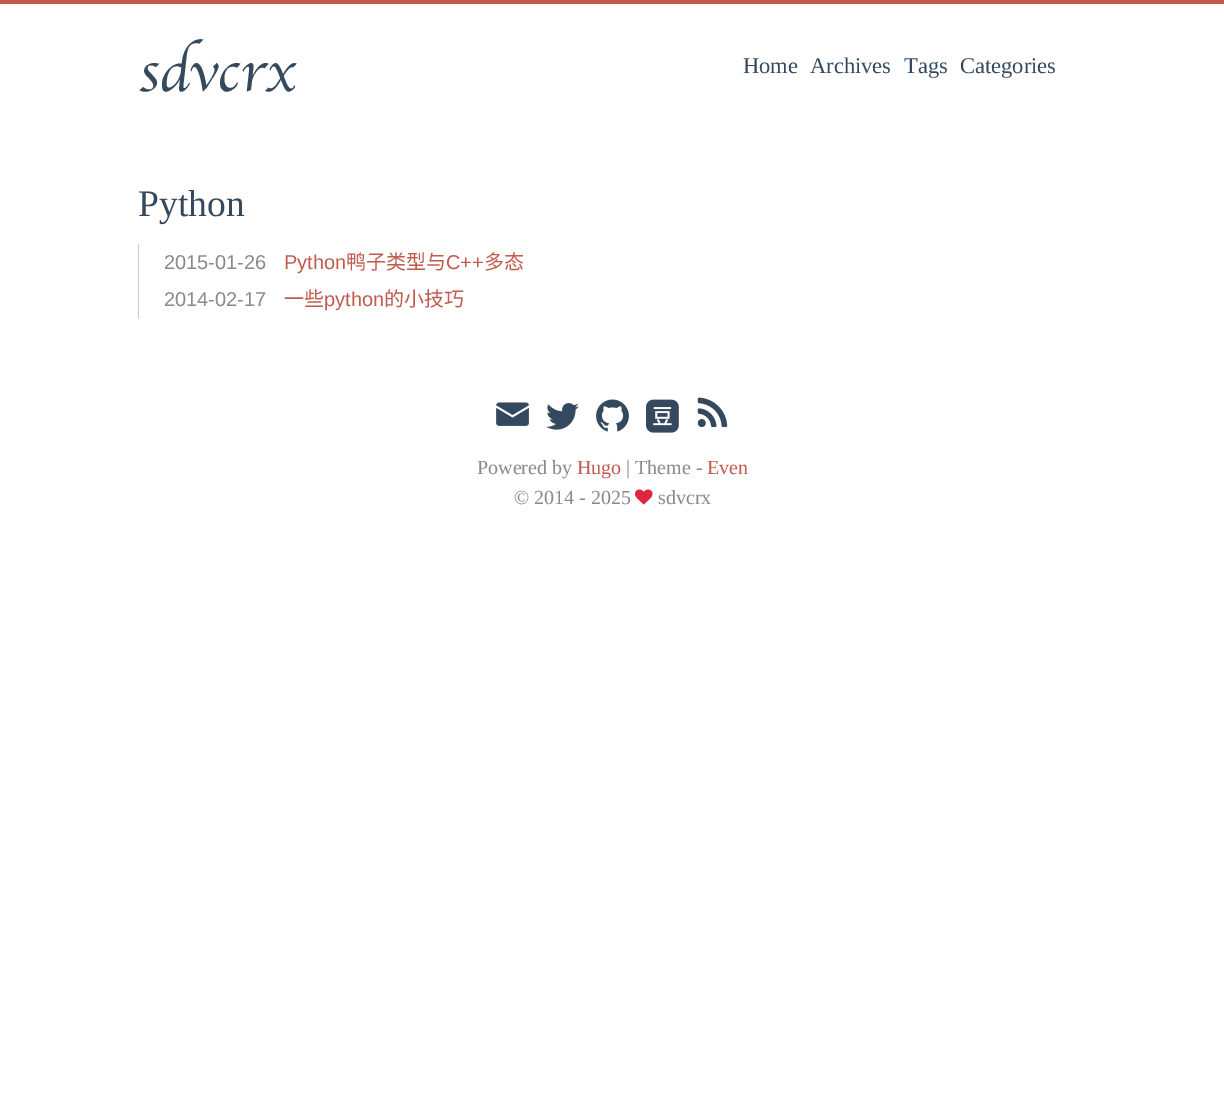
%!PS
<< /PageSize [1224 1112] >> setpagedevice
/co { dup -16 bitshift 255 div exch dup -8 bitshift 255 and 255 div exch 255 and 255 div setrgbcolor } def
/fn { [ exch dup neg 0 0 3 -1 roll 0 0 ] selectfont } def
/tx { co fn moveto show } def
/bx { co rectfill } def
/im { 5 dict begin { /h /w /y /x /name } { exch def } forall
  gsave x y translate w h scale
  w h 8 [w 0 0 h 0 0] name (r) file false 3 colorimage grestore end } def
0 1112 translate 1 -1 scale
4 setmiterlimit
0 0 1224 1112 16#FFFFFF bx
0 0 1224 4 16#C05B4D bx
138 244 1 75 16#CACACA bx
(media/1.raw) 496 402 33 24 im
(media/2.raw) 546 403 33 27 im
(media/3.raw) 596 399 33 33 im
(media/4.raw) 646 399 33 34 im
(media/5.raw) 697 397 31 31 im
(media/6.raw) 635 489 18 16 im
(sdvcrx) 138 91 /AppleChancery-Thin 60 16#34495E tx
(Home) 743 73 /LiberationSerif-Regular 22.5 16#34495E tx
(Archives) 810 73 /LiberationSerif-Regular 22.5 16#34495E tx
(Tags) 904 73 /LiberationSerif-Regular 22.5 16#34495E tx
(Categories) 960 73 /LiberationSerif-Regular 22.5 16#34495E tx
(Python) 138 216 /LiberationSerif-Regular 37.5 16#34495E tx
(2015-01-26) 164 269 /LiberationSans-Regular 20 16#8A8A8A tx
(Python) 284 269 /LiberationSans-Regular 20 16#C05B4D tx
(鸭子类型与) 346 269 /NotoSansCJKSC-Regular 20 16#C05B4D tx
(C++) 446 269 /LiberationSans-Regular 20 16#C05B4D tx
(多态) 484 269 /NotoSansCJKSC-Regular 20 16#C05B4D tx
(2014-02-17) 164 306 /LiberationSans-Regular 20 16#8A8A8A tx
(一些) 284 306 /NotoSansCJKSC-Regular 20 16#C05B4D tx
(python) 324 306 /LiberationSans-Regular 20 16#C05B4D tx
(的小技巧) 384 306 /NotoSansCJKSC-Regular 20 16#C05B4D tx
(Powered by) 477 474 /LiberationSerif-Regular 20 16#8A8A8A tx
(Hugo) 577 474 /LiberationSerif-Regular 20 16#C05B4D tx
(| Theme -) 626 474 /LiberationSerif-Regular 20 16#8A8A8A tx
(Even) 707 474 /LiberationSerif-Regular 20 16#C05B4D tx
(© 2014 - 2025) 514 504 /LiberationSerif-Regular 20 16#8A8A8A tx
(sdvcrx) 658 504 /LiberationSerif-Regular 20 16#8A8A8A tx
showpage
